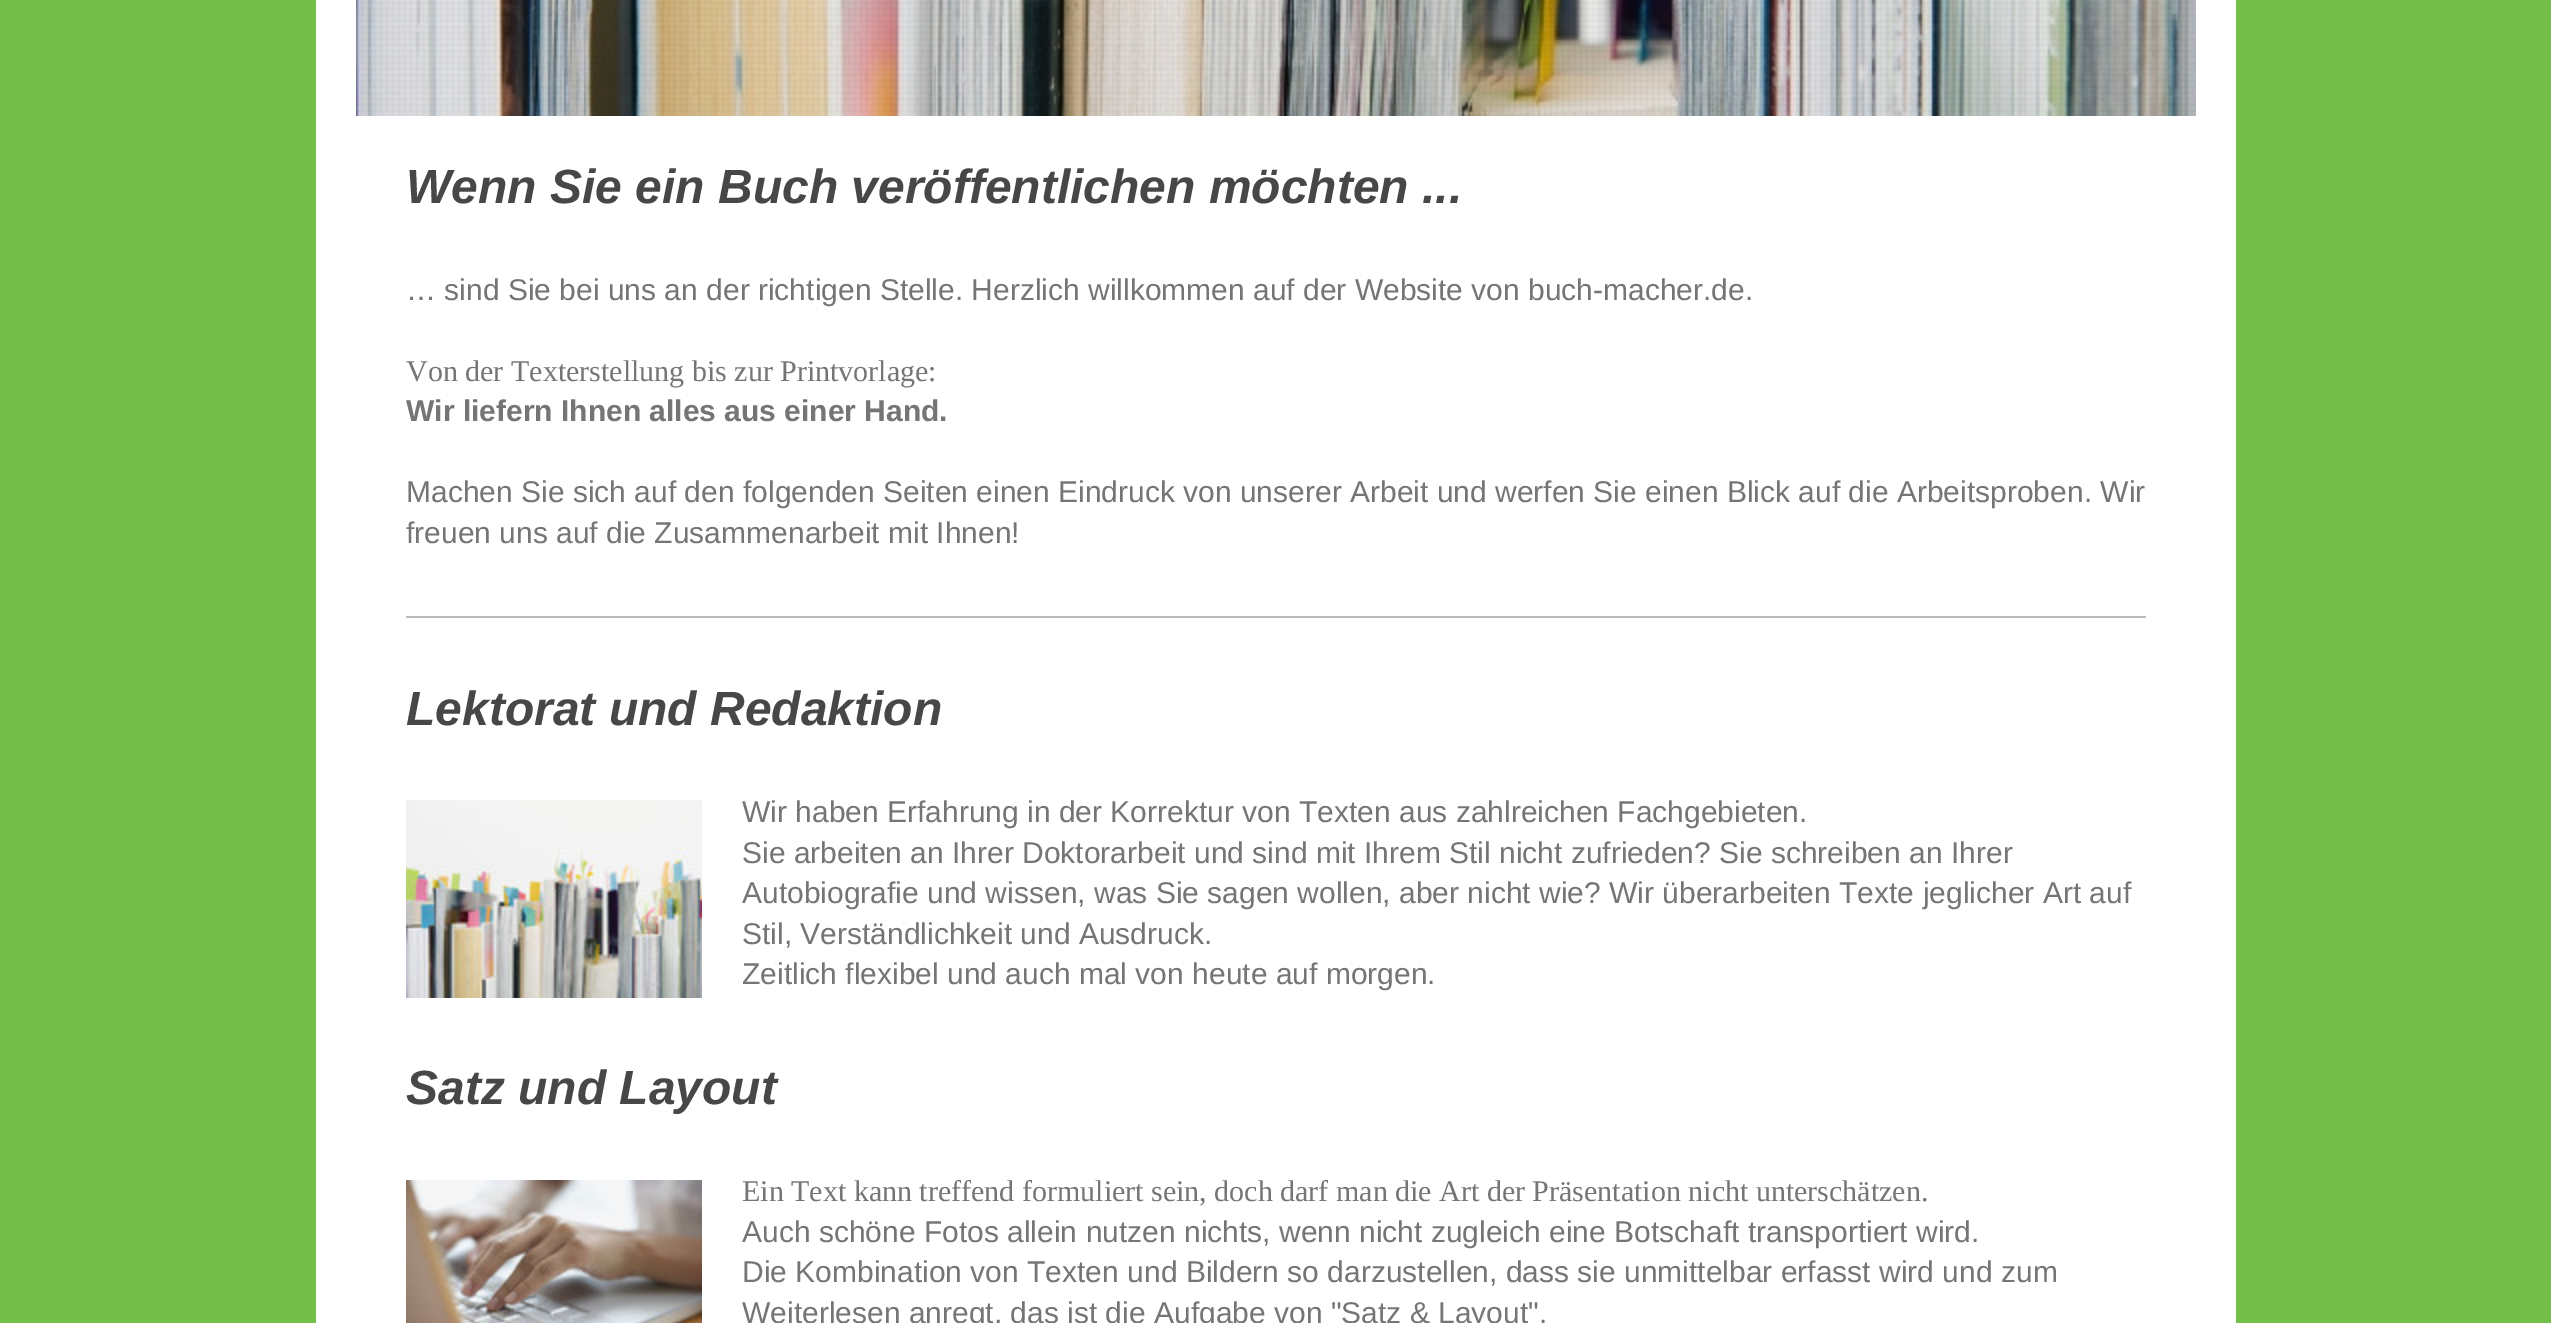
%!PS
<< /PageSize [2551 1323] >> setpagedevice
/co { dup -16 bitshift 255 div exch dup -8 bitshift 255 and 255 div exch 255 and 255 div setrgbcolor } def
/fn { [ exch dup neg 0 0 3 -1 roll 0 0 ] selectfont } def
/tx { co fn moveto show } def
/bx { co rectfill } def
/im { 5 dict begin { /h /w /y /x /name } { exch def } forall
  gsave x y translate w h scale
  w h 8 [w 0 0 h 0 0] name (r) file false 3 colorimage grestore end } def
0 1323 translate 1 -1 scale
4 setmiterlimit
0 0 2551 1323 16#73BF4A bx
316 0 1920 1323 16#FFFFFF bx
(media/1.raw) 356 0 1840 116 im
(media/2.raw) 356 0 1840 116 im
406 616 1740 2 16#BABABA bx
(media/3.raw) 406 800 296 198 im
(media/4.raw) 406 1180 296 143 im
(Wenn Sie ein Buch veröffentlichen möchten ...) 406 203 /LiberationSans-BoldItalic 48 16#474747 tx
(… sind Sie bei uns an der richtigen Stelle. Herzlich willkommen auf der Website von buch-macher.de.) 406 300 /LiberationSans-Regular 30 16#757575 tx
(Von der Texterstellung bis zur Printvorlage:) 406 381 /LiberationSerif-Regular 30 16#757575 tx
(Wir liefern Ihnen alles aus einer Hand.) 406 421 /LiberationSans-Bold 30 16#757575 tx
(Machen Sie sich auf den folgenden Seiten einen Eindruck von unserer Arbeit und werfen Sie einen Blick auf die Arbeitsproben. Wir) 406 502 /LiberationSans-Regular 30 16#757575 tx
(freuen uns auf die Zusammenarbeit mit Ihnen!) 406 543 /LiberationSans-Regular 30 16#757575 tx
(Lektorat und Redaktion) 406 725 /LiberationSans-BoldItalic 48 16#474747 tx
(Wir haben Erfahrung in der Korrektur von Texten aus zahlreichen Fachgebieten.) 742 822 /LiberationSans-Regular 30 16#757575 tx
(Sie arbeiten an Ihrer Doktorarbeit und sind mit Ihrem Stil nicht zufrieden? Sie schreiben an Ihrer) 742 863 /LiberationSans-Regular 30 16#757575 tx
(Autobiografie und wissen, was Sie sagen wollen, aber nicht wie? Wir überarbeiten Texte jeglicher Art auf) 742 903 /LiberationSans-Regular 30 16#757575 tx
(Stil, Verständlichkeit und Ausdruck.) 742 944 /LiberationSans-Regular 30 16#757575 tx
(Zeitlich flexibel und auch mal von heute auf morgen.) 742 984 /LiberationSans-Regular 30 16#757575 tx
(Satz und Layout) 406 1104 /LiberationSans-BoldItalic 48 16#474747 tx
(Ein Text kann treffend formuliert sein, doch darf man die Art der Präsentation nicht unterschätzen.) 742 1201 /LiberationSerif-Regular 30 16#757575 tx
(Auch schöne Fotos allein nutzen nichts, wenn nicht zugleich eine Botschaft transportiert wird.) 742 1242 /LiberationSans-Regular 30 16#757575 tx
(Die Kombination von Texten und Bildern so darzustellen, dass sie unmittelbar erfasst wird und zum) 742 1282 /LiberationSans-Regular 30 16#757575 tx
(Weiterlesen anregt, das ist die Aufgabe von "Satz & Layout".) 742 1323 /LiberationSans-Regular 30 16#757575 tx
showpage
